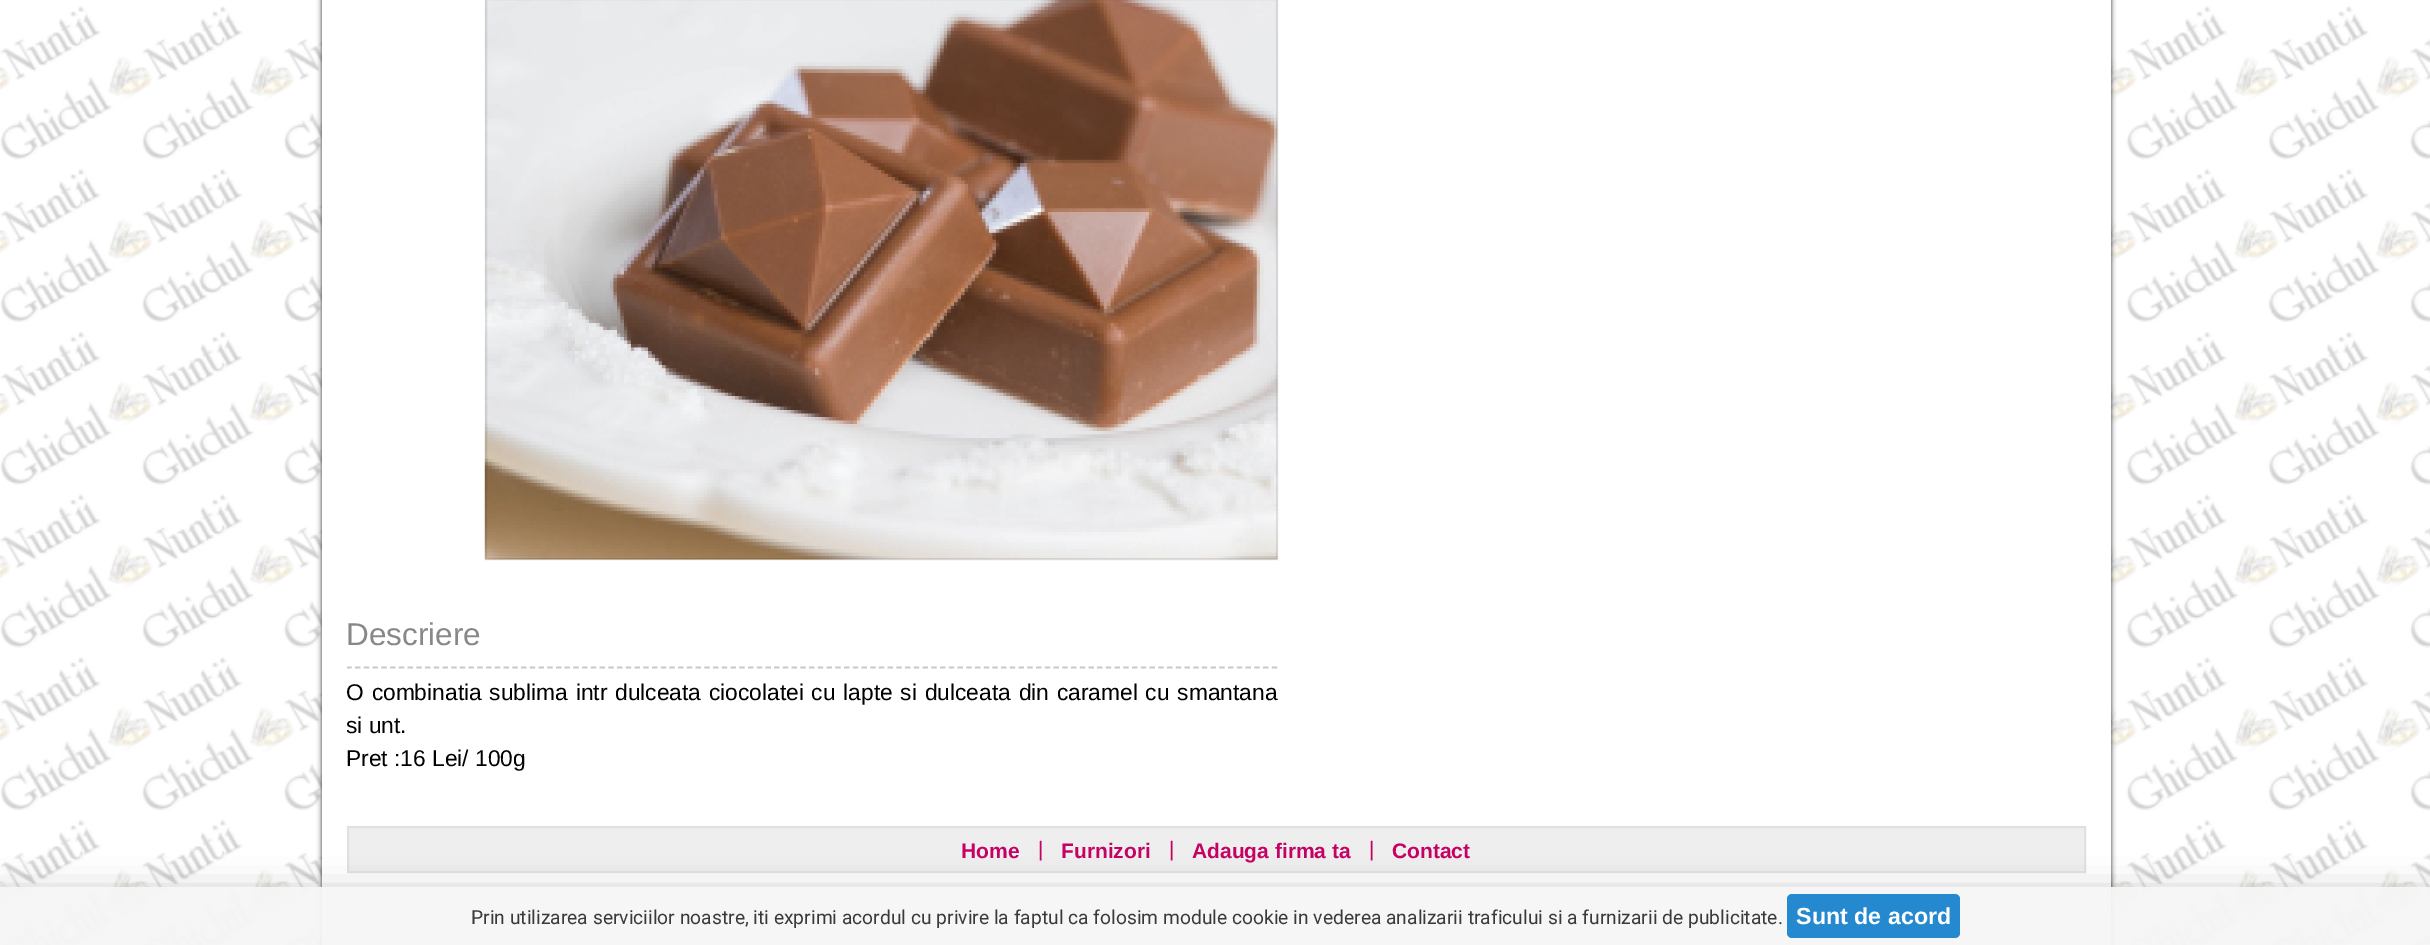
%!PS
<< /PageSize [2430 945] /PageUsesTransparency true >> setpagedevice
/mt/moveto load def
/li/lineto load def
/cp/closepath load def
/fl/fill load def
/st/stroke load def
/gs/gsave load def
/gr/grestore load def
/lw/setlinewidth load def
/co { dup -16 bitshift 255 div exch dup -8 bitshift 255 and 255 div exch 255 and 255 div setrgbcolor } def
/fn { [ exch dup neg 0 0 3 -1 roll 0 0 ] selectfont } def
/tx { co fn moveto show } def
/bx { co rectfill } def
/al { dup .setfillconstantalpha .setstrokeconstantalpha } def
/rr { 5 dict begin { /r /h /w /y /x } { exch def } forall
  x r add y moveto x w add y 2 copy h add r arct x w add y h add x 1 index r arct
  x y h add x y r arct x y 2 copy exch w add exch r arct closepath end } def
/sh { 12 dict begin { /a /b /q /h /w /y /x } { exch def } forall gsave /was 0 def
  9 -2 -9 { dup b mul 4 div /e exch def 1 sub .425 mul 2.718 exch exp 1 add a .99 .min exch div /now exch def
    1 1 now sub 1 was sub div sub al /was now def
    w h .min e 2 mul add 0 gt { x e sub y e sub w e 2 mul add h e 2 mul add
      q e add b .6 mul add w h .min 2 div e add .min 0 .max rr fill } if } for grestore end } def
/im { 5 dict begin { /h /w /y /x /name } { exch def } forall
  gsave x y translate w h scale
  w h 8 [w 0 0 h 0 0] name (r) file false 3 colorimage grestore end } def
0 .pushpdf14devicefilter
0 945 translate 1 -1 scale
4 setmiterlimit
0 0 2430 945 16#FFFFFF bx
(media/1.raw) 0 6 2430 939 im
16#000000 co
322 -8 1789 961 0 2.5 .8 sh
322 0 1789 945 16#FFFFFF bx
(media/2.raw) 484 0 794 560 im
0.1 al
16#000000 co
2 lw
486 -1 791 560 rectstroke
gs
347 0 1739 802 rectclip
1 al
16#C9C9C9 co
1.8 lw
[5.25 3.48] 0 setdash
346.5 667.5 mt 1277.5 667.5 li st
gr
1 al
16#EEEEEE co
348 827 mt 2085 827 li 2085 872 li 348 872 li cp gs fl gr
16#E1E1E1 co
st
gs
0 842 mt 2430 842 li 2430 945 li 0 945 li cp 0 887 mt 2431 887 li 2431 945 li 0 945 li cp eoclip newpath
16#000000 co
0 896 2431 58 0 17.5 .28 sh
gr
0.95 al
0 887 2430 58 16#F5F5F5 bx
1 al
16#2589D0 co
1787 894 173 44 5 rr fl
(Descriere) 346 645 /LiberationSans-Regular 31.5 16#888888 tx
gs
347 0 1739 802 rectclip
/LiberationSans-Regular 22.75 fn
16#000000 co
346 700 mt 1.5 0 32 (O combinatia sublima intr dulceata ciocolatei cu lapte si dulceata din caramel cu smantana) widthshow
(si unt.) 346 733 /LiberationSans-Regular 22.75 16#000000 tx
gr
(Pret :16 Lei/ 100g) 346 766 /LiberationSans-Regular 22.75 16#000000 tx
(Home) 961 858 /LiberationSans-Bold 21 16#C50163 tx
(|) 1038 856 /LiberationSans-Regular 21 16#C50163 tx
(Furnizori) 1061 858 /LiberationSans-Bold 21 16#C50163 tx
(|) 1169 856 /LiberationSans-Regular 21 16#C50163 tx
(Adauga firma ta) 1192 858 /LiberationSans-Bold 21 16#C50163 tx
(|) 1369 856 /LiberationSans-Regular 21 16#C50163 tx
(Contact) 1392 858 /LiberationSans-Bold 21 16#C50163 tx
(Prin utilizarea serviciilor noastre, iti exprimi acordul cu privire la faptul ca folosim module cookie in vederea analizarii traficului si a furnizarii de publicitate.) 471 924 /Roboto-Regular 19.25 16#3A3A3A tx
(Sunt de acord) 1796 924 /LiberationSans-Bold 23.25 16#FFFFFF tx
.poppdf14devicefilter showpage
